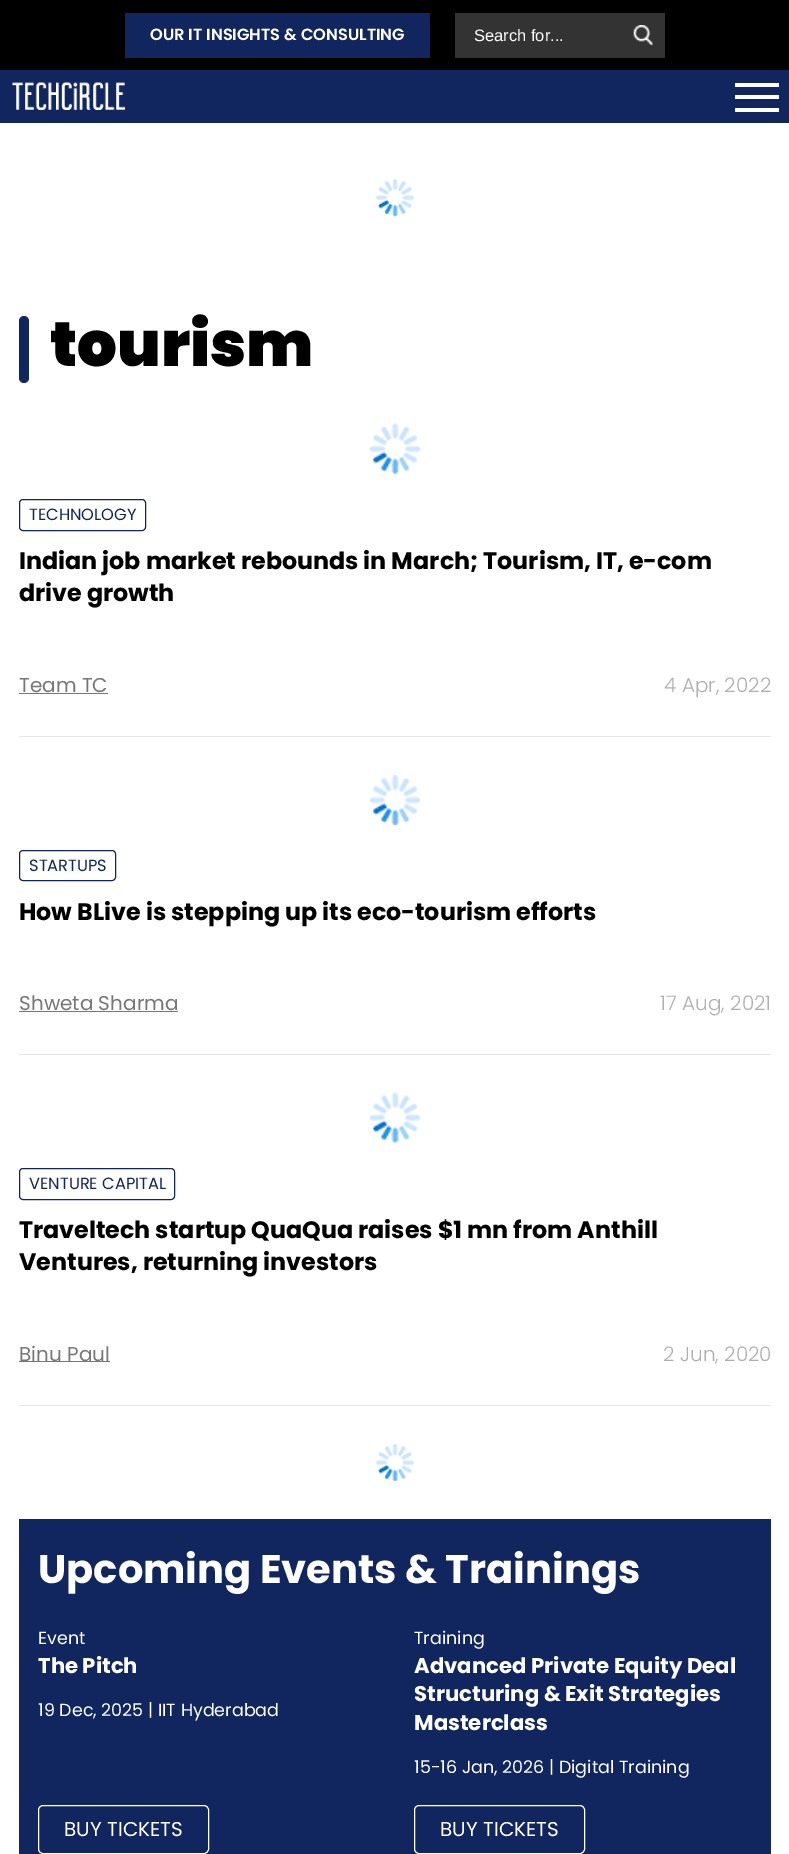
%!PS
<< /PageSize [789 1854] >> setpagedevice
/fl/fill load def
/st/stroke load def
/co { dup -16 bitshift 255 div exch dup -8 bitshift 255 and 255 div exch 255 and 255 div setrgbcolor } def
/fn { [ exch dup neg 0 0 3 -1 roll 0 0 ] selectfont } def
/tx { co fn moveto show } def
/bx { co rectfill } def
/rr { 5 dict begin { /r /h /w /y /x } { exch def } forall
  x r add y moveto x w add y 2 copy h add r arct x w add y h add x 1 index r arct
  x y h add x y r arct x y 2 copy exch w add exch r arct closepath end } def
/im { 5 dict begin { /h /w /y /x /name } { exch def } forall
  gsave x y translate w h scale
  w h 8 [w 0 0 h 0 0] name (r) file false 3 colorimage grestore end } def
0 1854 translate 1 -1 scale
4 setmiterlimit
0 0 789 1854 16#FFFFFF bx
0 0 789 70 16#000000 bx
125 13 305 45 16#11255E bx
455 13 210 45 16#333333 bx
(media/1.raw) 633 25 20 20 im
0 70 789 53 16#11255E bx
(media/2.raw) 12 82 113 28 im
16#FFFFFF co
735 95 44 4 1 rr fl
735 83 44 4 1 rr fl
735 108 44 4 1 rr fl
(media/3.raw) 376 179 38 38 im
16#11255E co
19 316 10 67 5 rr fl
19 736 752 1 16#E6E6E6 bx
(media/4.raw) 370 423 50 51 im
16#11255E co
19.5 499.5 126 31 3.5 rr st
19 693 89 1 16#777777 bx
19 1054 752 1 16#E6E6E6 bx
(media/5.raw) 370 775 50 50 im
16#11255E co
19.5 850.5 96 30 3.5 rr st
19 1011 159 1 16#777777 bx
19 1405 752 1 16#E6E6E6 bx
(media/6.raw) 370 1092 50 51 im
16#11255E co
19.5 1168.5 155 31 3.5 rr st
19 1361 91 1 16#777777 bx
(media/7.raw) 376 1444 38 38 im
19 1519 752 335 16#11255E bx
16#FFFFFF co
38.5 1805.5 170 48 4.5 rr st
414.5 1805.5 170 48 4.5 rr st
(OUR IT INSIGHTS & CONSULTING) 150 40 /Poppins-SemiBold 16.25 16#FFFFFF tx
(Search for...) 474 41 /LiberationSans-Regular 16.5 16#FFFFFF tx
(tourism) 50 366 /Poppins-Black 62.5 16#000000 tx
(TECHNOLOGY) 29 520 /Poppins-Regular 16.25 16#11255E tx
(Indian job market rebounds in March; Tourism, IT, e-com) 19 569 /Poppins-Bold 23.75 16#000000 tx
(drive growth) 19 601 /Poppins-Bold 23.75 16#000000 tx
(Team TC) 19 692 /Poppins-Regular 20 16#777777 tx
(4 Apr, 2022) 664 692 /Poppins-Light 20 16#AFAFAF tx
(STARTUPS) 29 871 /Poppins-Regular 16.25 16#11255E tx
(How BLive is stepping up its eco-tourism efforts) 19 920 /Poppins-Bold 23.75 16#000000 tx
(Shweta Sharma) 19 1010 /Poppins-Regular 20 16#777777 tx
(17 Aug, 2021) 660 1010 /Poppins-Light 20 16#AFAFAF tx
(VENTURE CAPITAL) 29 1189 /Poppins-Regular 16.25 16#11255E tx
(Traveltech startup QuaQua raises $1 mn from Anthill) 19 1238 /Poppins-Bold 23.75 16#000000 tx
(Ventures, returning investors) 19 1270 /Poppins-Bold 23.75 16#000000 tx
(Binu Paul) 19 1361 /Poppins-Regular 20 16#777777 tx
(2 Jun, 2020) 663 1361 /Poppins-Light 20 16#AFAFAF tx
(Upcoming Events & Trainings) 38 1583 /Poppins-Bold 40 16#FFFFFF tx
(Event) 38 1644 /Poppins-Regular 17.5 16#FFFFFF tx
(The Pitch) 38 1673 /Poppins-Bold 21.25 16#FFFFFF tx
(19 Dec, 2025 | IIT Hyderabad) 38 1716 /Poppins-Regular 17.5 16#FFFFFF tx
(BUY TICKETS) 64 1836 /Poppins-Regular 20 16#FFFFFF tx
(Training) 414 1644 /Poppins-Regular 17.5 16#FFFFFF tx
(Advanced Private Equity Deal) 414 1673 /Poppins-Bold 21.25 16#FFFFFF tx
(Structuring & Exit Strategies) 414 1701 /Poppins-Bold 21.25 16#FFFFFF tx
(Masterclass) 414 1730 /Poppins-Bold 21.25 16#FFFFFF tx
(15-16 Jan, 2026 | Digital Training) 414 1773 /Poppins-Regular 17.5 16#FFFFFF tx
(BUY TICKETS) 440 1836 /Poppins-Regular 20 16#FFFFFF tx
showpage
